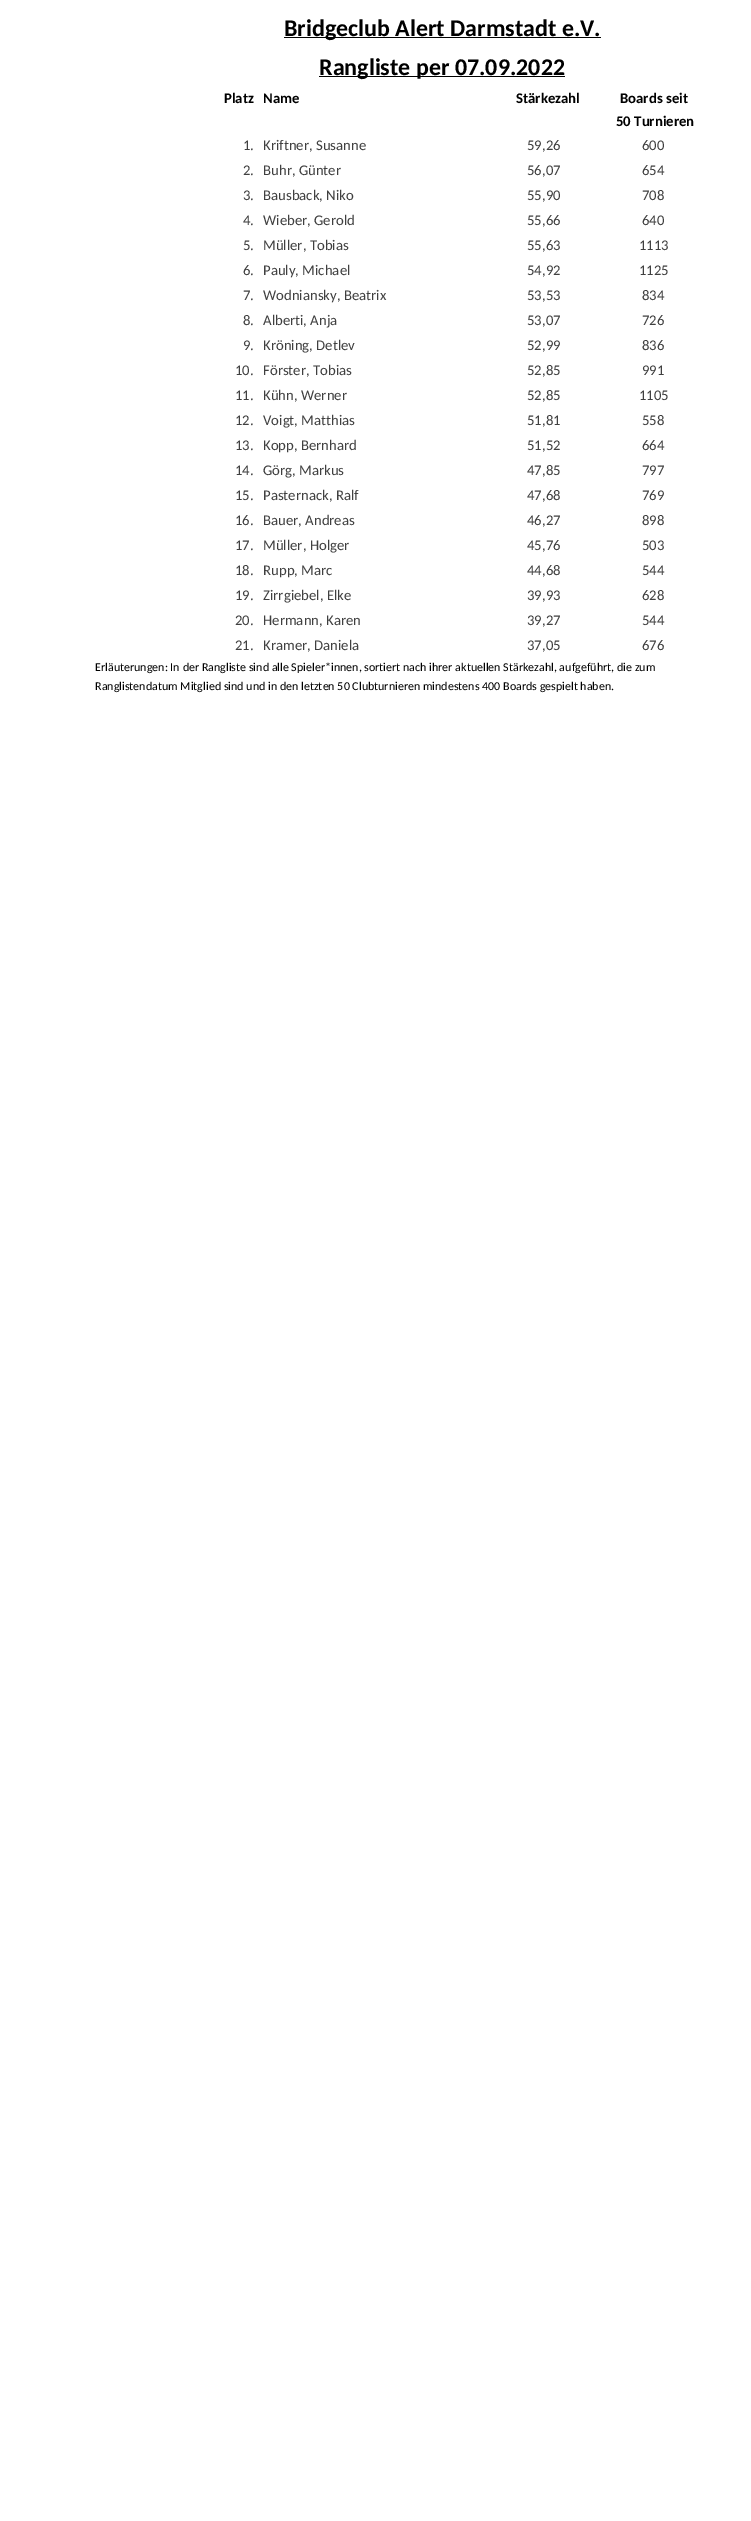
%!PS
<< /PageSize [751 2521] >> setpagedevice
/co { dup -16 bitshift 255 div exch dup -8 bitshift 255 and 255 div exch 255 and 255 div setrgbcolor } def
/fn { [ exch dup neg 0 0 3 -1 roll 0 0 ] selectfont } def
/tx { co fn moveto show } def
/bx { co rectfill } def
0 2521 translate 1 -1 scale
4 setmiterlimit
0 0 751 2521 16#FFFFFF bx
284 37 317 1 16#000000 bx
319 76 246 1 16#000000 bx
(Bridgeclub Alert Darmstadt e.V.) 284 36 /Carlito-Bold 24 16#000000 tx
(Rangliste per 07.09.2022) 319 75 /Carlito-Bold 24 16#000000 tx
(Platz) 224 103 /Carlito-Bold 14.75 16#000000 tx
(Name) 263 103 /Carlito-Bold 14.75 16#000000 tx
(Stärkezahl) 516 103 /Carlito-Bold 14.75 16#000000 tx
(Boards seit) 620 103 /Carlito-Bold 14.75 16#000000 tx
(50 Turnieren) 616 126 /Carlito-Bold 14.75 16#000000 tx
(1.) 243 150 /Carlito-Regular 14.75 16#404040 tx
(Kriftner, Susanne) 263 150 /Carlito-Regular 14.75 16#404040 tx
(59,26) 527 150 /Carlito-Regular 14.75 16#404040 tx
(600) 642 150 /Carlito-Regular 14.75 16#404040 tx
(2.) 243 175 /Carlito-Regular 14.75 16#404040 tx
(Buhr, Günter) 263 175 /Carlito-Regular 14.75 16#404040 tx
(56,07) 527 175 /Carlito-Regular 14.75 16#404040 tx
(654) 642 175 /Carlito-Regular 14.75 16#404040 tx
(3.) 243 200 /Carlito-Regular 14.75 16#404040 tx
(Bausback, Niko) 263 200 /Carlito-Regular 14.75 16#404040 tx
(55,90) 527 200 /Carlito-Regular 14.75 16#404040 tx
(708) 642 200 /Carlito-Regular 14.75 16#404040 tx
(4.) 243 225 /Carlito-Regular 14.75 16#404040 tx
(Wieber, Gerold) 263 225 /Carlito-Regular 14.75 16#404040 tx
(55,66) 527 225 /Carlito-Regular 14.75 16#404040 tx
(640) 642 225 /Carlito-Regular 14.75 16#404040 tx
(5.) 243 250 /Carlito-Regular 14.75 16#404040 tx
(Müller, Tobias) 263 250 /Carlito-Regular 14.75 16#404040 tx
(55,63) 527 250 /Carlito-Regular 14.75 16#404040 tx
(1113) 639 250 /Carlito-Regular 14.75 16#404040 tx
(6.) 243 275 /Carlito-Regular 14.75 16#404040 tx
(Pauly, Michael) 263 275 /Carlito-Regular 14.75 16#404040 tx
(54,92) 527 275 /Carlito-Regular 14.75 16#404040 tx
(1125) 639 275 /Carlito-Regular 14.75 16#404040 tx
(7.) 243 300 /Carlito-Regular 14.75 16#404040 tx
(Wodniansky, Beatrix) 263 300 /Carlito-Regular 14.75 16#404040 tx
(53,53) 527 300 /Carlito-Regular 14.75 16#404040 tx
(834) 642 300 /Carlito-Regular 14.75 16#404040 tx
(8.) 243 325 /Carlito-Regular 14.75 16#404040 tx
(Alberti, Anja) 263 325 /Carlito-Regular 14.75 16#404040 tx
(53,07) 527 325 /Carlito-Regular 14.75 16#404040 tx
(726) 642 325 /Carlito-Regular 14.75 16#404040 tx
(9.) 243 350 /Carlito-Regular 14.75 16#404040 tx
(Kröning, Detlev) 263 350 /Carlito-Regular 14.75 16#404040 tx
(52,99) 527 350 /Carlito-Regular 14.75 16#404040 tx
(836) 642 350 /Carlito-Regular 14.75 16#404040 tx
(10.) 235 375 /Carlito-Regular 14.75 16#404040 tx
(Förster, Tobias) 263 375 /Carlito-Regular 14.75 16#404040 tx
(52,85) 527 375 /Carlito-Regular 14.75 16#404040 tx
(991) 642 375 /Carlito-Regular 14.75 16#404040 tx
(11.) 235 400 /Carlito-Regular 14.75 16#404040 tx
(Kühn, Werner) 263 400 /Carlito-Regular 14.75 16#404040 tx
(52,85) 527 400 /Carlito-Regular 14.75 16#404040 tx
(1105) 639 400 /Carlito-Regular 14.75 16#404040 tx
(12.) 235 425 /Carlito-Regular 14.75 16#404040 tx
(Voigt, Matthias) 263 425 /Carlito-Regular 14.75 16#404040 tx
(51,81) 527 425 /Carlito-Regular 14.75 16#404040 tx
(558) 642 425 /Carlito-Regular 14.75 16#404040 tx
(13.) 235 450 /Carlito-Regular 14.75 16#404040 tx
(Kopp, Bernhard) 263 450 /Carlito-Regular 14.75 16#404040 tx
(51,52) 527 450 /Carlito-Regular 14.75 16#404040 tx
(664) 642 450 /Carlito-Regular 14.75 16#404040 tx
(14.) 235 475 /Carlito-Regular 14.75 16#404040 tx
(Görg, Markus) 263 475 /Carlito-Regular 14.75 16#404040 tx
(47,85) 527 475 /Carlito-Regular 14.75 16#404040 tx
(797) 642 475 /Carlito-Regular 14.75 16#404040 tx
(15.) 235 500 /Carlito-Regular 14.75 16#404040 tx
(Pasternack, Ralf) 263 500 /Carlito-Regular 14.75 16#404040 tx
(47,68) 527 500 /Carlito-Regular 14.75 16#404040 tx
(769) 642 500 /Carlito-Regular 14.75 16#404040 tx
(16.) 235 525 /Carlito-Regular 14.75 16#404040 tx
(Bauer, Andreas) 263 525 /Carlito-Regular 14.75 16#404040 tx
(46,27) 527 525 /Carlito-Regular 14.75 16#404040 tx
(898) 642 525 /Carlito-Regular 14.75 16#404040 tx
(17.) 235 550 /Carlito-Regular 14.75 16#404040 tx
(Müller, Holger) 263 550 /Carlito-Regular 14.75 16#404040 tx
(45,76) 527 550 /Carlito-Regular 14.75 16#404040 tx
(503) 642 550 /Carlito-Regular 14.75 16#404040 tx
(18.) 235 575 /Carlito-Regular 14.75 16#404040 tx
(Rupp, Marc) 263 575 /Carlito-Regular 14.75 16#404040 tx
(44,68) 527 575 /Carlito-Regular 14.75 16#404040 tx
(544) 642 575 /Carlito-Regular 14.75 16#404040 tx
(19.) 235 600 /Carlito-Regular 14.75 16#404040 tx
(Zirrgiebel, Elke) 263 600 /Carlito-Regular 14.75 16#404040 tx
(39,93) 527 600 /Carlito-Regular 14.75 16#404040 tx
(628) 642 600 /Carlito-Regular 14.75 16#404040 tx
(20.) 235 625 /Carlito-Regular 14.75 16#404040 tx
(Hermann, Karen) 263 625 /Carlito-Regular 14.75 16#404040 tx
(39,27) 527 625 /Carlito-Regular 14.75 16#404040 tx
(544) 642 625 /Carlito-Regular 14.75 16#404040 tx
(21.) 235 650 /Carlito-Regular 14.75 16#404040 tx
(Kramer, Daniela) 263 650 /Carlito-Regular 14.75 16#404040 tx
(37,05) 527 650 /Carlito-Regular 14.75 16#404040 tx
(676) 642 650 /Carlito-Regular 14.75 16#404040 tx
(Erläuterungen: In der Rangliste sind alle Spieler*innen, sortiert nach ihrer aktuellen Stärkezahl, aufgeführt, die zum) 95 671 /Carlito-Regular 12 16#000000 tx
(Ranglistendatum Mitglied sind und in den letzten 50 Clubturnieren mindestens 400 Boards gespielt haben.) 95 690 /Carlito-Regular 12 16#000000 tx
showpage
